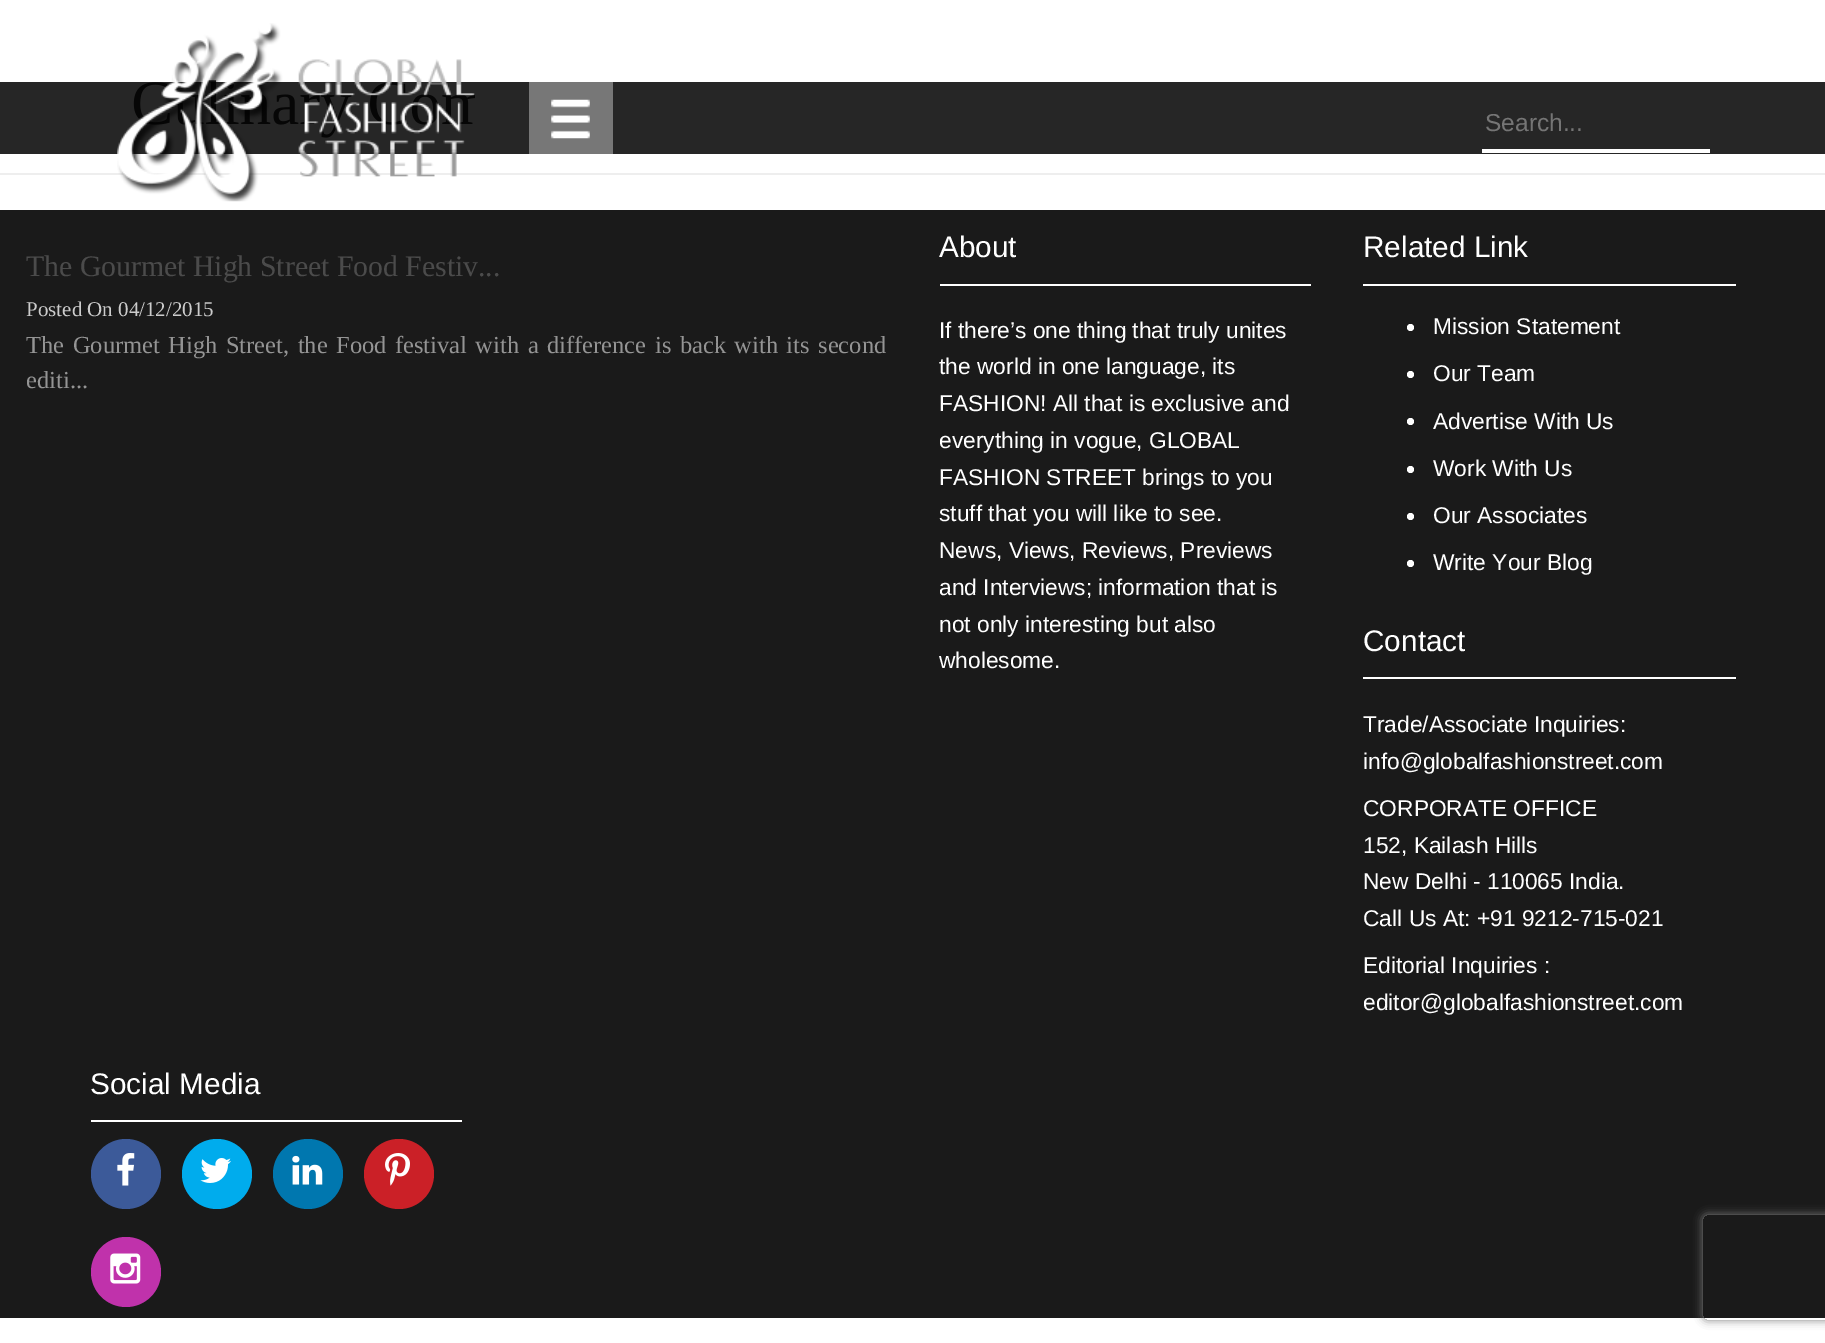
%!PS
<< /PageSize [1825 1343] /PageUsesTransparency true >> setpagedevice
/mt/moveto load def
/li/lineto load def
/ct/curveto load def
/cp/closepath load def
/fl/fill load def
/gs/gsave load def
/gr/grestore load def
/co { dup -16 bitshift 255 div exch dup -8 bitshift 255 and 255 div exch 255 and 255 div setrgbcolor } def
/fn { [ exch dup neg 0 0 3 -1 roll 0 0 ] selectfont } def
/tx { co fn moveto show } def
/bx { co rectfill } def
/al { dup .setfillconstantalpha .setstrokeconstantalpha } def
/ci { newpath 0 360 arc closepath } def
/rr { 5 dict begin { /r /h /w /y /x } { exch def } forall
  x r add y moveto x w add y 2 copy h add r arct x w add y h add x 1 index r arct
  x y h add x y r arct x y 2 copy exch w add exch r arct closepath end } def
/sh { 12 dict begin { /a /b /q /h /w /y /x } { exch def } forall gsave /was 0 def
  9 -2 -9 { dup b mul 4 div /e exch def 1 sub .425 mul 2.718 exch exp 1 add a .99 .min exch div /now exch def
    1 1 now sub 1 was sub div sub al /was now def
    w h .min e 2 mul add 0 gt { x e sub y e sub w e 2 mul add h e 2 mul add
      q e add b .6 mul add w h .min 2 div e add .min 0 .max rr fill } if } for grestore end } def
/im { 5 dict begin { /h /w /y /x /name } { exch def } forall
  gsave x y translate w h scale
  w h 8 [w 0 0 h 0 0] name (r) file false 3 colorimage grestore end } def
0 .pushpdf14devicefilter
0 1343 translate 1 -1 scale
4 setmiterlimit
0 0 1825 1343 16#FFFFFF bx
0.85 al
0 82 1825 72 16#000000 bx
1 al
0 173 1825 2 16#EEEEEE bx
(media/1.raw) 117 23 358 179 im
529 82 84 72 16#777777 bx
(media/2.raw) 551 99 39 40 im
1482 149 228 4 16#FFFFFF bx
0 210 1825 1108 16#1A1A1A bx
940 284 371 2 16#FFFFFF bx
1363 284 373 2 16#FFFFFF bx
1410.5 327.5 3.5 ci fl
1410.5 374.5 3.5 ci fl
1410.5 421.5 3.5 ci fl
1410.5 469.5 3.5 ci fl
1410.5 516.5 3.5 ci fl
1410.5 563.5 3.5 ci fl
1363 677 373 2 16#FFFFFF bx
91 1120 371 2 16#FFFFFF bx
16#3C5A99 co
126 1174 35 ci fl
(media/3.raw) 117 1153 18 33 im
16#00ACED co
217 1174 35 ci fl
(media/4.raw) 200 1158 31 25 im
16#0077AF co
308 1174 35 ci fl
(media/5.raw) 292 1155 31 30 im
16#CB2027 co
399 1174 35 ci fl
(media/6.raw) 385 1153 25 33 im
16#C032AB co
126 1272 35 ci fl
(media/7.raw) 110 1253 31 31 im
gs
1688 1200 mt 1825 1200 li 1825 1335 li 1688 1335 li cp 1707 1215 mt 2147 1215 li 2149 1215 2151 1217 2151 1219 ct 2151 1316 li 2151 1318 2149 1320 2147 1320 ct 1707 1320 li 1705 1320 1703 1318 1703 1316 ct 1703 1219 li 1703 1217 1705 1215 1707 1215 ct cp eoclip newpath
16#808080 co
1703 1215 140 105 4 4.5 1 sh
gr
(Search...) 1485 131 /LiberationSans-Regular 24.5 16#757575 tx
(About) 939 257 /LiberationSans-Regular 29.75 16#FFFFFF tx
(If there’s one thing that truly unites) 939 338 /LiberationSans-Regular 22.75 16#FFFFFF tx
(the world in one language, its) 939 374 /LiberationSans-Regular 22.75 16#FFFFFF tx
(FASHION! All that is exclusive and) 939 411 /LiberationSans-Regular 22.75 16#FFFFFF tx
(everything in vogue, GLOBAL) 939 448 /LiberationSans-Regular 22.75 16#FFFFFF tx
(FASHION STREET brings to you) 939 485 /LiberationSans-Regular 22.75 16#FFFFFF tx
(stuff that you will like to see.) 939 521 /LiberationSans-Regular 22.75 16#FFFFFF tx
(News, Views, Reviews, Previews) 939 558 /LiberationSans-Regular 22.75 16#FFFFFF tx
(and Interviews; information that is) 939 595 /LiberationSans-Regular 22.75 16#FFFFFF tx
(not only interesting but also) 939 632 /LiberationSans-Regular 22.75 16#FFFFFF tx
(wholesome.) 939 668 /LiberationSans-Regular 22.75 16#FFFFFF tx
(Related Link) 1363 257 /LiberationSans-Regular 29.75 16#FFFFFF tx
(Mission Statement) 1433 334 /LiberationSans-Regular 22.75 16#FFFFFF tx
(Our Team) 1433 381 /LiberationSans-Regular 22.75 16#FFFFFF tx
(Advertise With Us) 1433 429 /LiberationSans-Regular 22.75 16#FFFFFF tx
(Work With Us) 1433 476 /LiberationSans-Regular 22.75 16#FFFFFF tx
(Our Associates) 1433 523 /LiberationSans-Regular 22.75 16#FFFFFF tx
(Write Your Blog) 1433 570 /LiberationSans-Regular 22.75 16#FFFFFF tx
(Contact) 1363 651 /LiberationSans-Regular 29.75 16#FFFFFF tx
(Trade/Associate Inquiries:) 1363 732 /LiberationSans-Regular 22.75 16#FFFFFF tx
(info@globalfashionstreet.com) 1363 769 /LiberationSans-Regular 22.75 16#FFFFFF tx
(CORPORATE OFFICE) 1363 816 /LiberationSans-Regular 22.75 16#FFFFFF tx
(152, Kailash Hills) 1363 853 /LiberationSans-Regular 22.75 16#FFFFFF tx
(New Delhi - 110065 India.) 1363 889 /LiberationSans-Regular 22.75 16#FFFFFF tx
(Call Us At: +91 9212-715-021) 1363 926 /LiberationSans-Regular 22.75 16#FFFFFF tx
(Editorial Inquiries :) 1363 973 /LiberationSans-Regular 22.75 16#FFFFFF tx
(editor@globalfashionstreet.com) 1363 1010 /LiberationSans-Regular 22.75 16#FFFFFF tx
(Social Media) 90 1094 /LiberationSans-Regular 29.75 16#FFFFFF tx
(The Gourmet High Street Food Festiv...) 26 276 /LiberationSerif-Regular 29.75 16#4B4B4B tx
(Posted On 04/12/2015) 26 316 /LiberationSerif-Regular 21 16#CCCCCC tx
/LiberationSerif-Regular 24.5 fn
16#949494 co
26 353 mt 2.4 0 32 (The Gourmet High Street, the Food festival with a difference is back with its second) widthshow
(editi...) 26 388 /LiberationSerif-Regular 24.5 16#949494 tx
.poppdf14devicefilter showpage
